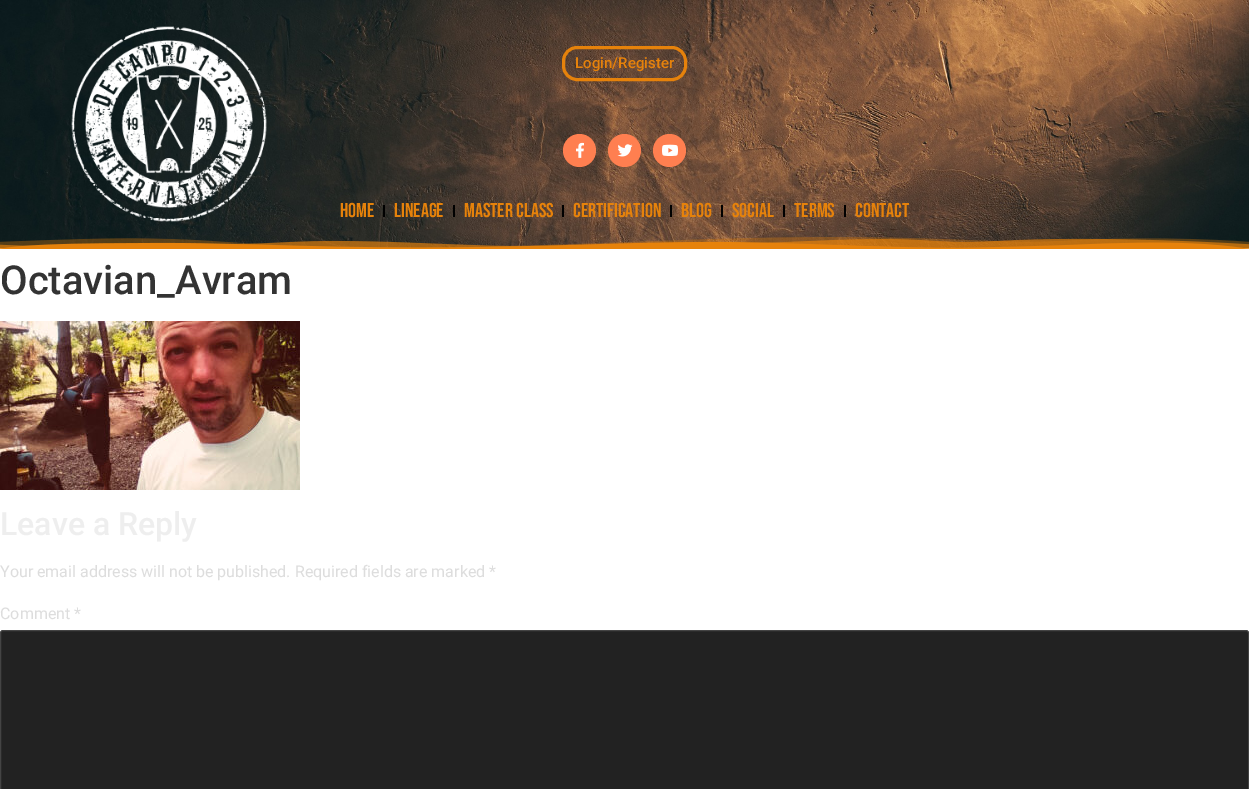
%!PS
<< /PageSize [1249 789] >> setpagedevice
/fl/fill load def
/st/stroke load def
/gs/gsave load def
/gr/grestore load def
/lw/setlinewidth load def
/co { dup -16 bitshift 255 div exch dup -8 bitshift 255 and 255 div exch 255 and 255 div setrgbcolor } def
/fn { [ exch dup neg 0 0 3 -1 roll 0 0 ] selectfont } def
/tx { co fn moveto show } def
/bx { co rectfill } def
/ci { newpath 0 360 arc closepath } def
/rr { 5 dict begin { /r /h /w /y /x } { exch def } forall
  x r add y moveto x w add y 2 copy h add r arct x w add y h add x 1 index r arct
  x y h add x y r arct x y 2 copy exch w add exch r arct closepath end } def
/im { 5 dict begin { /h /w /y /x /name } { exch def } forall
  gsave x y translate w h scale
  w h 8 [w 0 0 h 0 0] name (r) file false 3 colorimage grestore end } def
0 789 translate 1 -1 scale
4 setmiterlimit
0 0 1249 789 16#FFFFFF bx
(media/1.raw) 0 0 1249 249 im
(media/2.raw) 71 26 196 196 im
16#E6820B co
3 lw
563.5 47.5 122 32 13.5 rr st
16#FF7F50 co
579.5 150.5 16.5 ci fl
(media/3.raw) 576 142 8 16 im
624.5 150.5 16.5 ci fl
(media/4.raw) 617 144 16 13 im
669.5 150.5 16.5 ci fl
(media/5.raw) 662 144 16 12 im
383 205 2 12 16#000000 bx
453 205 2 12 16#000000 bx
562 205 2 12 16#000000 bx
670 205 2 12 16#000000 bx
721 205 2 12 16#000000 bx
783 205 2 12 16#000000 bx
844 205 2 12 16#000000 bx
(media/6.raw) 0 237 1249 12 im
(media/7.raw) 0 321 300 169 im
16#222222 co
.5 630.5 1248 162 2.5 rr gs fl gr
16#444444 co
1 lw
st
(Login/Register) 575 68 /Roboto-Medium 15 16#E6820B tx
(Home) 340 217 /BebasNeue-Regular 20 16#E6820B tx
(Lineage) 394 217 /BebasNeue-Regular 20 16#E6820B tx
(Master Class) 464 217 /BebasNeue-Regular 20 16#E6820B tx
(Certification) 573 217 /BebasNeue-Regular 20 16#E6820B tx
(Blog) 681 217 /BebasNeue-Regular 20 16#E6820B tx
(Social) 732 217 /BebasNeue-Regular 20 16#E6820B tx
(Terms) 794 217 /BebasNeue-Regular 20 16#E6820B tx
(Contact) 855 217 /BebasNeue-Regular 20 16#E6820B tx
(Octavian_Avram) 0 294 /Roboto-Medium 40 16#333333 tx
(Leave a Reply) 0 535 /Roboto-Medium 32 16#EEEEEE tx
(Your email address will not be published. Required fields are marked *) 0 577 /Roboto-Regular 16 16#DDDDDD tx
(Comment *) 0 619 /Roboto-Regular 16 16#DDDDDD tx
showpage
